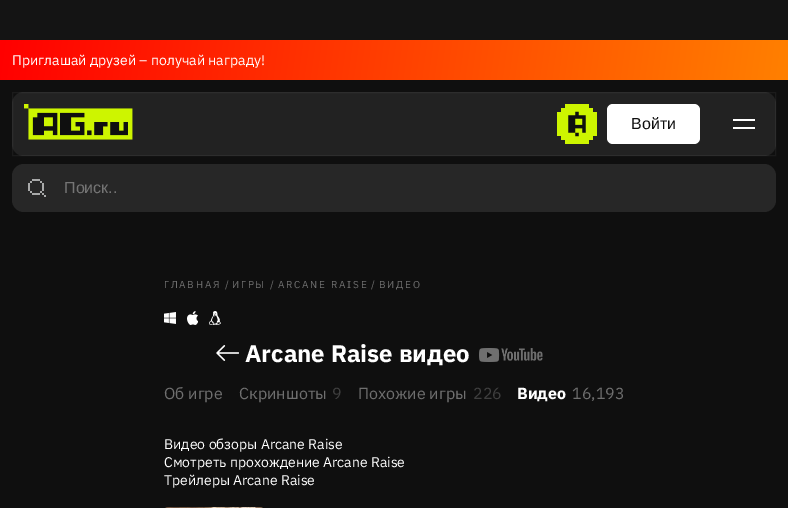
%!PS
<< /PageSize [788 508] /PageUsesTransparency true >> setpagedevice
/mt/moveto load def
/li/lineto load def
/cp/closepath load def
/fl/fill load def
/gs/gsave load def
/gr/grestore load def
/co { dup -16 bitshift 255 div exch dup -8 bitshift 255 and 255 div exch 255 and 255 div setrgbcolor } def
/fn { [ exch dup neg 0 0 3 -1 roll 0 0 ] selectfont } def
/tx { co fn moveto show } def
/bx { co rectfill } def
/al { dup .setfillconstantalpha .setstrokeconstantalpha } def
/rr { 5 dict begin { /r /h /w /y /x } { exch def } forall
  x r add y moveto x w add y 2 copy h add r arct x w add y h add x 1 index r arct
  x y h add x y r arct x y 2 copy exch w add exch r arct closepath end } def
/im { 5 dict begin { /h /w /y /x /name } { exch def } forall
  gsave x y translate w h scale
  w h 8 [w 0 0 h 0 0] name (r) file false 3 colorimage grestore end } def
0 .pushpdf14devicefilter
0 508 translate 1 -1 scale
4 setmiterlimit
0 0 788 508 16#0F0F0F bx
0 0 788 40 16#141414 bx
gs 0 40 mt 788 40 li 788 80 li 0 80 li cp clip newpath
<< /ShadingType 2 /ColorSpace /DeviceRGB /Coords [4.9 5.3 783 115] /Extend [true true] /Function << /FunctionType 2 /Domain [0 1] /C0 [1 0 0] /C1 [1 .502 0] /N 1 >> >> shfill gr
16#222222 co
12 92 764 64 12 rr fl
0.05 al
16#FFFFFF co
12.5 92.5 763 63 rectstroke
1 al
(media/1.raw) 24 104 109 36 im
(media/2.raw) 557 104 40 40 im
607 104 93 40 6 rr fl
(media/3.raw) 733 119 22 10 im
16#272727 co
12 164 764 48 12 rr fl
(media/4.raw) 28 179 18 18 im
(media/5.raw) 164 312 12 12 im
(media/6.raw) 187 311 11 14 im
(media/7.raw) 209 311 12 14 im
(media/8.raw) 216 345 23 16 im
(media/9.raw) 479 348 64 14 im
(media/10.raw) 165 507 98 1 im
(Приглашай друзей – получай награду!) 12 65 /IBMPlexSans-Regular 14 16#FFFFFF tx
(Войти) 631 129 /LiberationSans-Regular 16 16#0F0F0F tx
(Поиск..) 64 193 /LiberationSans-Regular 16 16#757575 tx
/IBMPlexSans-Regular 10 fn
16#6F6F6F co
164 288 mt 1.75 0 (ГЛАВНАЯ) ashow
(/) 225 288 /IBMPlexSans-Regular 10 16#6F6F6F tx
232 288 mt 1.75 0 (ИГРЫ) ashow
(/) 270 288 /IBMPlexSans-Regular 10 16#6F6F6F tx
278 288 mt 1.75 0 (ARCANE RAISE) ashow
(/) 371 288 /IBMPlexSans-Regular 10 16#6F6F6F tx
379 288 mt 1.75 0 (ВИДЕО) ashow
(Arcane Raise видео) 245 362 /IBMPlexSans-Bold 24 16#FFFFFF tx
(Об игре) 164 399 /IBMPlexSans-Regular 16 16#6F6F6F tx
(Скриншоты) 239 399 /IBMPlexSans-Regular 16 16#6F6F6F tx
(9) 332 399 /IBMPlexSans-Regular 16 16#3F3F3F tx
(Похожие игры) 358 399 /IBMPlexSans-Regular 16 16#6F6F6F tx
(226) 473 399 /IBMPlexSans-Regular 16 16#3F3F3F tx
(Видео) 517 399 /IBMPlexSans-Bold 16 16#FFFFFF tx
(16,193) 572 399 /IBMPlexSans-Regular 16 16#6F6F6F tx
(Видео обзоры Arcane Raise) 164 449 /IBMPlexSans-Regular 14 16#FFFFFF tx
(Смотреть прохождение Arcane Raise) 164 467 /IBMPlexSans-Regular 14 16#FFFFFF tx
(Трейлеры Arcane Raise) 164 485 /IBMPlexSans-Regular 14 16#FFFFFF tx
.poppdf14devicefilter showpage
